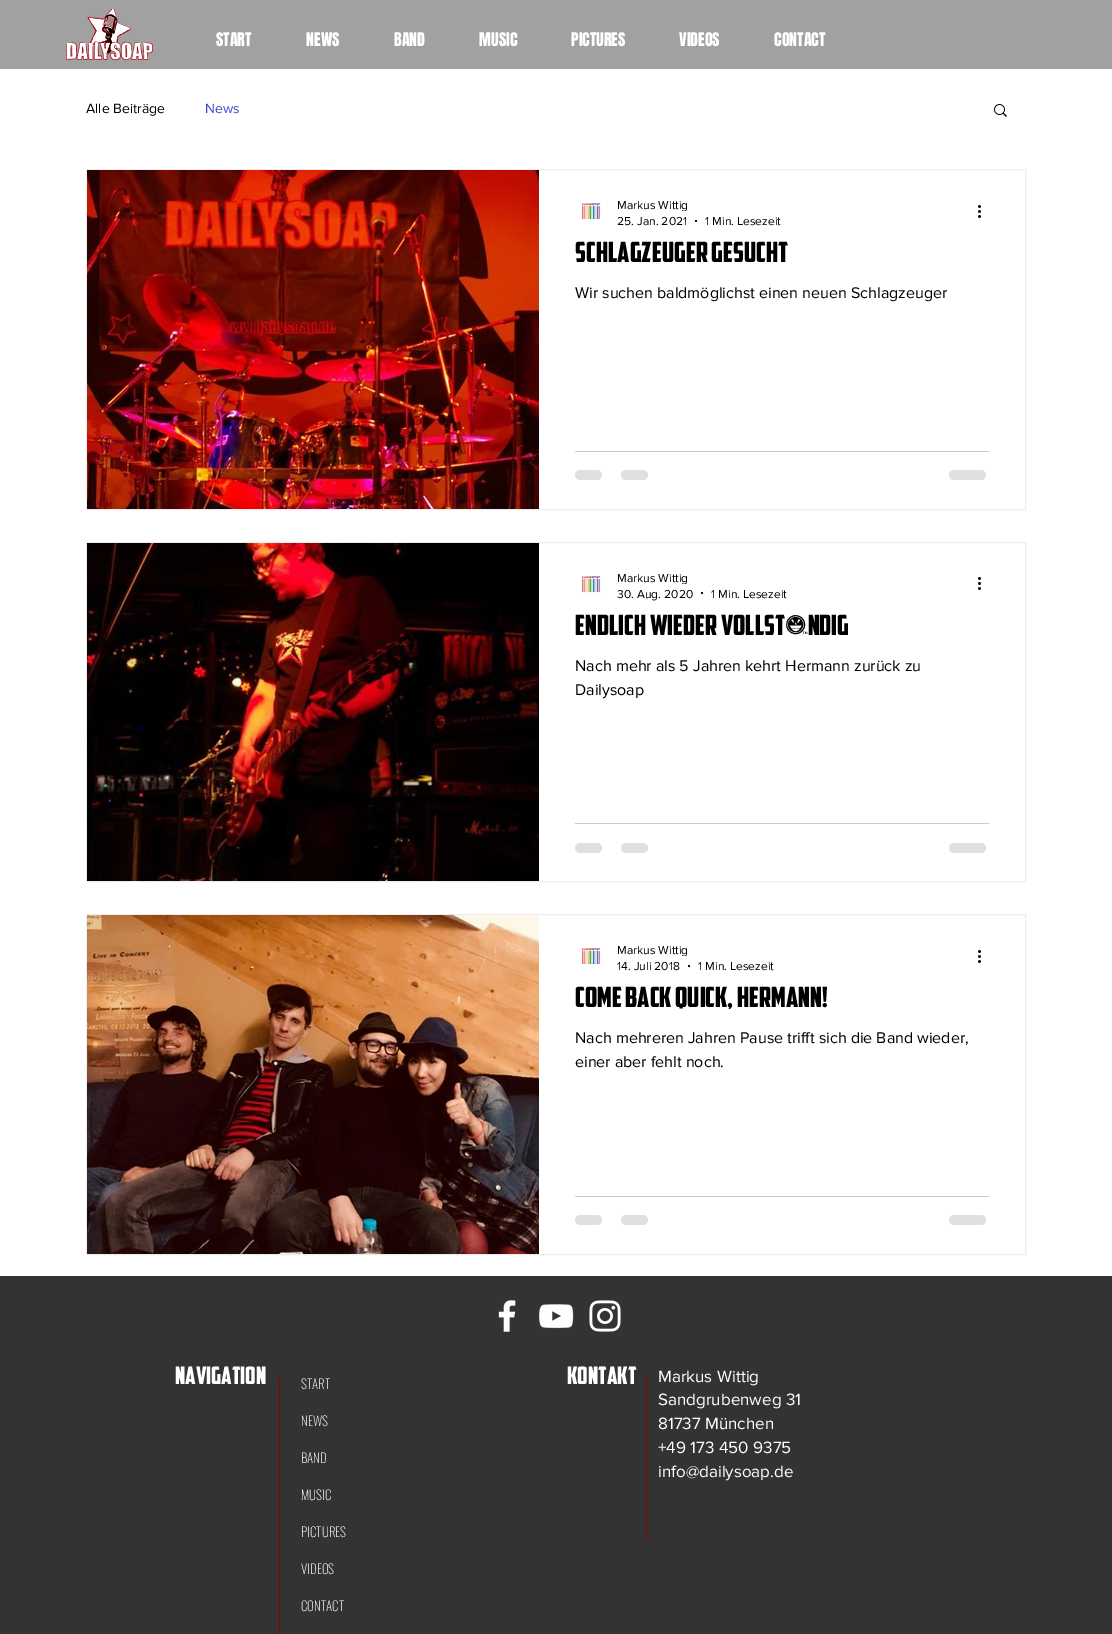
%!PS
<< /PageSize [1112 1634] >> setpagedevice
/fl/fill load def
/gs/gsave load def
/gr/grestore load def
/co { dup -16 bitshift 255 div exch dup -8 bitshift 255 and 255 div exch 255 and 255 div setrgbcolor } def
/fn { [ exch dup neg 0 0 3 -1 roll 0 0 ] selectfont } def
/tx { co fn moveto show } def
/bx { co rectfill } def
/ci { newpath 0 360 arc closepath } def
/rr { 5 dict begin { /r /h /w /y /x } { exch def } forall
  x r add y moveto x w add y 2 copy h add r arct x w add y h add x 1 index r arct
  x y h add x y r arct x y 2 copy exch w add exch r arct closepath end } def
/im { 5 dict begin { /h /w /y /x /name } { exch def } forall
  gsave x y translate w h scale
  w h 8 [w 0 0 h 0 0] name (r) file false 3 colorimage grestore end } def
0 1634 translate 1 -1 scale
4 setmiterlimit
0 0 1112 1634 16#FFFFFF bx
0 0 1112 69 16#A1A1A1 bx
(media/1.raw) 66 9 87 52 im
(media/2.raw) 994 104 13 13 im
16#EEECEC co
86.5 169.5 939 340 rectstroke
(media/3.raw) 87 170 452 339 im
(media/4.raw) 581 203 20 17 im
16#000000 co
696 221 1 ci fl
(media/5.raw) 978 205 3 13 im
575 451 414 1 16#CCCCCC bx
16#E0E0E0 co
575 470 27 10 5 rr fl
621 470 27 10 5 rr fl
949 470 37 10 5 rr fl
16#EEECEC co
86.5 542.5 939 339 rectstroke
(media/6.raw) 87 543 452 338 im
(media/4.raw) 581 576 20 17 im
16#000000 co
702 593 1 ci fl
(media/5.raw) 978 577 3 13 im
575 823 414 1 16#CCCCCC bx
16#E0E0E0 co
575 843 27 10 5 rr fl
621 843 27 10 5 rr fl
949 843 37 10 5 rr fl
16#EEECEC co
86.5 914.5 939 340 rectstroke
(media/7.raw) 87 915 452 339 im
(media/4.raw) 581 948 20 17 im
16#000000 co
689 966 1 ci fl
(media/5.raw) 978 950 3 13 im
575 1196 414 1 16#CCCCCC bx
16#E0E0E0 co
575 1215 27 10 5 rr fl
621 1215 27 10 5 rr fl
949 1215 37 10 5 rr fl
0 1276 1112 358 16#333333 bx
(media/8.raw) 498 1300 18 32 im
(media/9.raw) 539 1304 35 25 im
(media/10.raw) 589 1300 32 32 im
279 1378 1 256 16#8B0000 bx
646 1377 1 163 16#8B0000 bx
(START) 216 46 /Anton-Regular 16 16#FFFFFF tx
(NEWS) 306 46 /Anton-Regular 16 16#FFFFFF tx
(BAND) 394 46 /Anton-Regular 16 16#FFFFFF tx
(MUSIC) 479 46 /Anton-Regular 16 16#FFFFFF tx
(PICTURES) 571 46 /Anton-Regular 16 16#FFFFFF tx
(VIDEOS) 679 46 /Anton-Regular 16 16#FFFFFF tx
(CONTACT) 774 46 /Anton-Regular 16 16#FFFFFF tx
(Alle Beiträge) 86 113 /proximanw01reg-Regular 14 16#000000 tx
(News) 205 113 /proximanw01reg-Regular 14 16#384AD3 tx
gs
617 198 71 13 rectclip
(Markus Wittig) 617 209 /proximanw01reg-Regular 12 16#000000 tx
gr
(25. Jan. 2021) 617 225 /proximanw01reg-Regular 12 16#000000 tx
(1 Min. Lesezeit) 705 225 /proximanw01reg-Regular 12 16#000000 tx
(Schlagzeuger gesucht) 575 262 /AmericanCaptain-Regular 28 16#000000 tx
(Wir suchen baldmöglichst einen neuen Schlagzeuger) 575 298 /proximanw01reg-Regular 16 16#000000 tx
gs
617 571 71 13 rectclip
(Markus Wittig) 617 582 /proximanw01reg-Regular 12 16#000000 tx
gr
(30. Aug. 2020) 617 598 /proximanw01reg-Regular 12 16#000000 tx
(1 Min. Lesezeit) 711 598 /proximanw01reg-Regular 12 16#000000 tx
(Endlich wieder vollständig) 575 635 /AmericanCaptain-Regular 28 16#000000 tx
(Nach mehr als 5 Jahren kehrt Hermann zurück zu) 575 671 /proximanw01reg-Regular 16 16#000000 tx
(Dailysoap) 575 695 /proximanw01reg-Regular 16 16#000000 tx
gs
617 943 71 13 rectclip
(Markus Wittig) 617 954 /proximanw01reg-Regular 12 16#000000 tx
gr
(14. Juli 2018) 617 970 /proximanw01reg-Regular 12 16#000000 tx
(1 Min. Lesezeit) 698 970 /proximanw01reg-Regular 12 16#000000 tx
(Come back quick, Hermann!) 575 1007 /AmericanCaptain-Regular 28 16#000000 tx
(Nach mehreren Jahren Pause trifft sich die Band wieder,) 575 1043 /proximanw01reg-Regular 16 16#000000 tx
(einer aber fehlt noch.) 575 1067 /proximanw01reg-Regular 16 16#000000 tx
(Navigation) 175 1384 /AmericanCaptain-Regular 24 16#FFFFFF tx
(START) 301 1389 /Oswald-ExtraLight 13 16#FFFFFF tx
(NEWS) 301 1426 /Oswald-ExtraLight 13 16#FFFFFF tx
(BAND) 301 1463 /Oswald-ExtraLight 13 16#FFFFFF tx
(MUSIC) 301 1500 /Oswald-ExtraLight 13 16#FFFFFF tx
(PICTURES) 301 1537 /Oswald-ExtraLight 13 16#FFFFFF tx
(VIDEOS) 301 1574 /Oswald-ExtraLight 13 16#FFFFFF tx
(CONTACT) 301 1611 /Oswald-ExtraLight 13 16#FFFFFF tx
(Kontakt) 567 1384 /AmericanCaptain-Regular 24 16#FFFFFF tx
(Markus Wittig) 658 1382 /proximanw01reg-Regular 17 16#FFFFFF tx
(Sandgrubenweg 31) 658 1405 /proximanw01reg-Regular 17 16#FFFFFF tx
(81737 München) 658 1429 /proximanw01reg-Regular 17 16#FFFFFF tx
(+49 173 450 9375) 658 1453 /proximanw01reg-Regular 17 16#FFFFFF tx
(info@dailysoap.de) 658 1477 /proximanw01reg-Regular 17 16#FFFFFF tx
showpage
